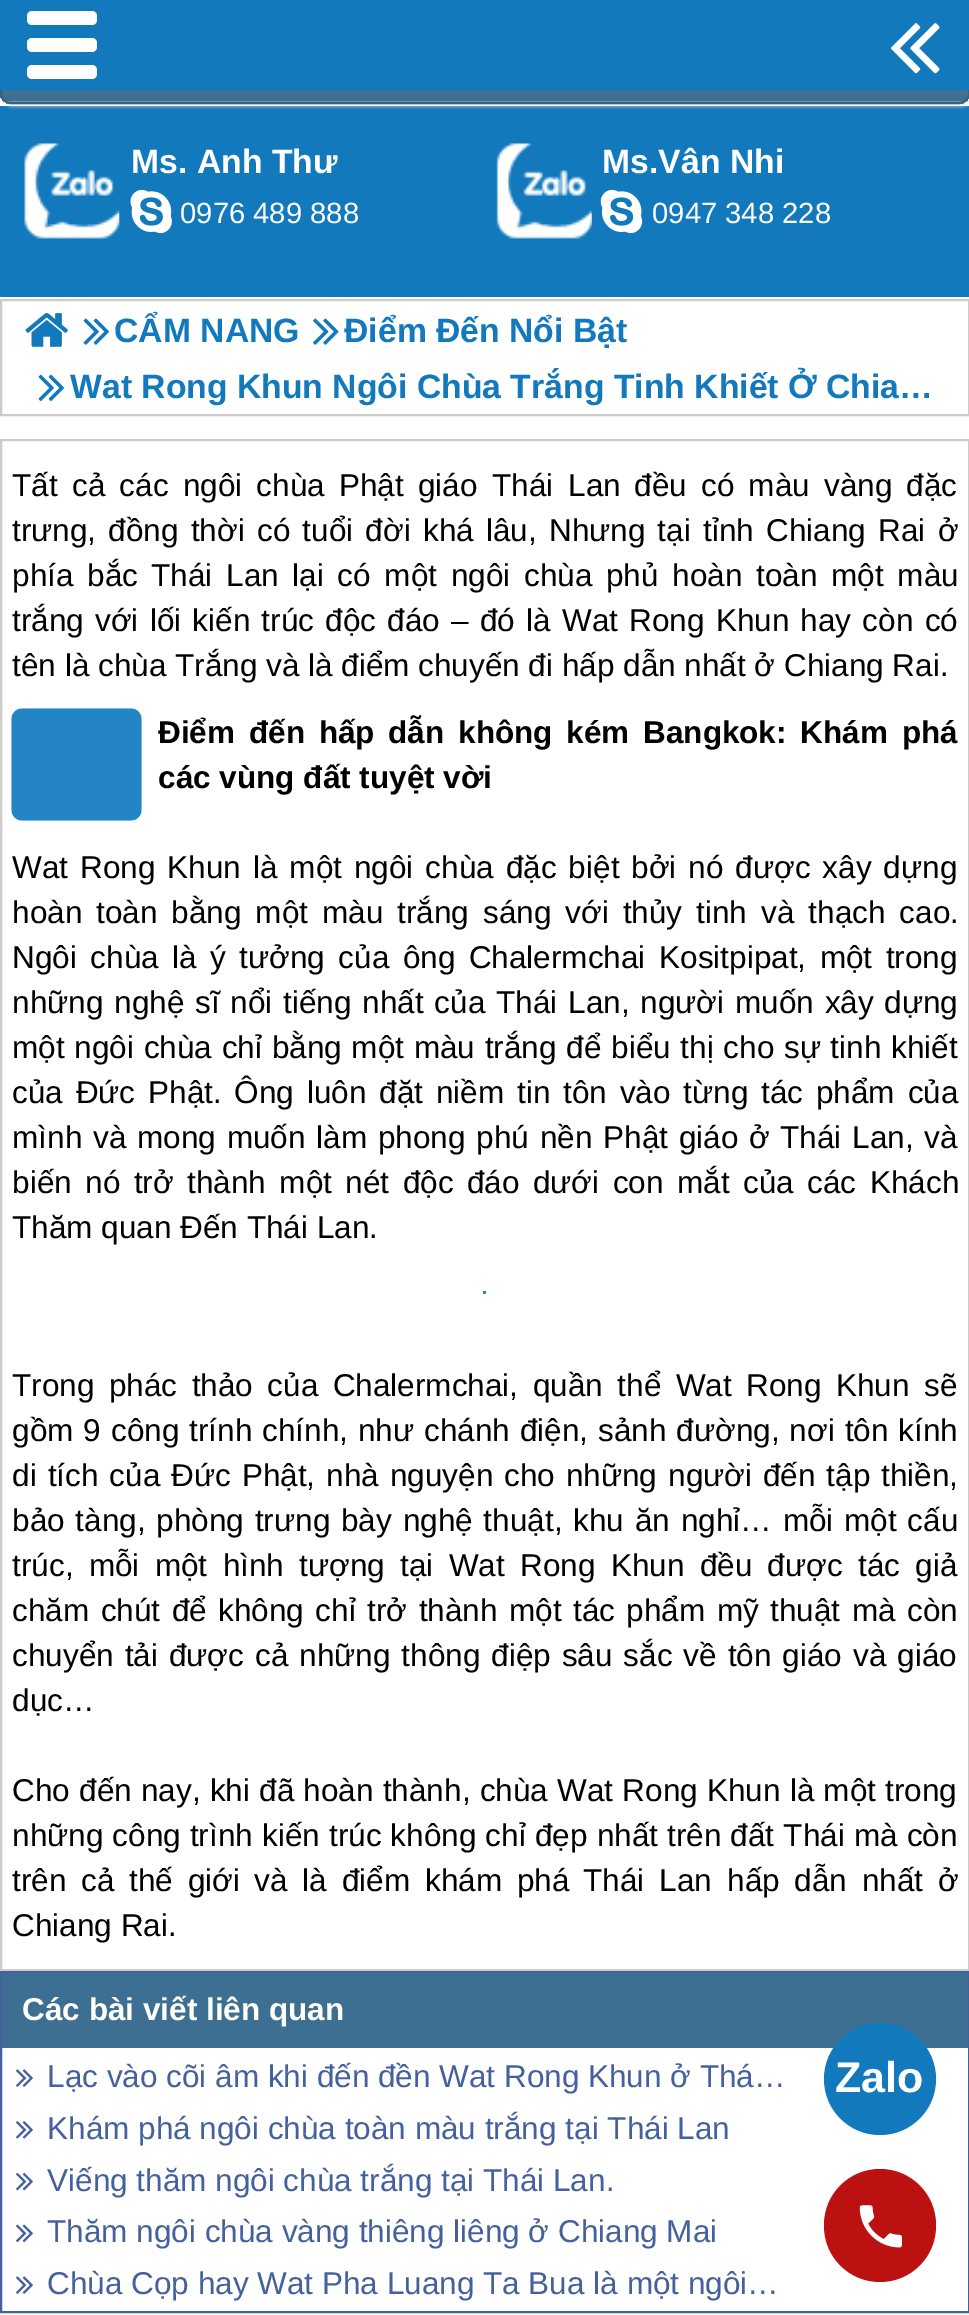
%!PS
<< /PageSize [969 2315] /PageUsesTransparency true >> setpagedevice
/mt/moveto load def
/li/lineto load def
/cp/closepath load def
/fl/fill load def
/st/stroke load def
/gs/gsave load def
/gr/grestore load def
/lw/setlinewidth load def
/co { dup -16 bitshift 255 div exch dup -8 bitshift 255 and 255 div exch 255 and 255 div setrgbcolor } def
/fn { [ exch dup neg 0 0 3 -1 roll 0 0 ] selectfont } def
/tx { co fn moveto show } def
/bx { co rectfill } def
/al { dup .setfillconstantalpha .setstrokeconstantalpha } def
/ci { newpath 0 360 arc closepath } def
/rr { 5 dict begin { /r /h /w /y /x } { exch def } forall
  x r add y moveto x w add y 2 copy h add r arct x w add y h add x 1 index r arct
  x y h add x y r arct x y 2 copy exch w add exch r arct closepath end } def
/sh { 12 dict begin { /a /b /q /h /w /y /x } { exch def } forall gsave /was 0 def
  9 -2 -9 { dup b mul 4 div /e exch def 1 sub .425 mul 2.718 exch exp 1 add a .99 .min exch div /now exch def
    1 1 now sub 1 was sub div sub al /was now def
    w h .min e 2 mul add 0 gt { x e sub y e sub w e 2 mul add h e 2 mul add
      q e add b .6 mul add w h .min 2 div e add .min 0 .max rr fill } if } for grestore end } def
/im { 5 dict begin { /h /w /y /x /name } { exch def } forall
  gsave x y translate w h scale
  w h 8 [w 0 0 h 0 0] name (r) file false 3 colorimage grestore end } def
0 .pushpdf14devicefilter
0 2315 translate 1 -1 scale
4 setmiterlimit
0 0 969 2315 16#FFFFFF bx
0 106 969 191 16#1179BC bx
16#E7E7E7 co
2 7 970 99 11 2 1 sh
gs
0 5 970 99 11 rr clip newpath
gs 0 90 mt 969 90 li 969 101 li 0 101 li cp clip newpath
<< /ShadingType 2 /ColorSpace /DeviceRGB /Coords [485 6.7 485 101] /Extend [true true] /Function << /FunctionType 2 /Domain [0 1] /C0 [.42 .588 .694] /C1 [.235 .435 .569] /N 1 >> >> shfill gr
gs 0 101 mt 969 101 li 969 104 li 0 104 li cp clip newpath
<< /ShadingType 2 /ColorSpace /DeviceRGB /Coords [485 101 485 196] /Extend [true true] /Function << /FunctionType 2 /Domain [0 1] /C0 [.42 .588 .694] /C1 [.235 .435 .569] /N 1 >> >> shfill gr
gr
16#39627D co
2 lw
1 6 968 97 10 rr st
0 0 969 90 16#1179BC bx
16#FFFFFF co
27 11 70 14 5 rr fl
27 38 70 14 5 rr fl
27 65 70 14 5 rr fl
(media/1.raw) 891 23 49 51 im
(media/2.raw) 24 143 96 96 im
(media/3.raw) 130 189 42 45 im
(media/4.raw) 496 143 96 96 im
(media/5.raw) 600 189 43 45 im
16#CCCCCC co
1 300 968 115 rectstroke
(media/6.raw) 25 313 43 34 im
(media/7.raw) 83 318 26 27 im
(media/8.raw) 313 318 26 27 im
(media/9.raw) 38 374 26 27 im
1 440 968 1530 rectstroke
(media/10.raw) 11 708 131 113 im
483 1291 3 3 16#2385C6 bx
16#45619D co
1 1972 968 340 rectstroke
2 1973 966 75 16#3C6F91 bx
(media/11.raw) 16 2069 17 18 im
(media/12.raw) 16 2121 17 18 im
(media/13.raw) 16 2172 17 19 im
(media/14.raw) 16 2224 17 19 im
(media/11.raw) 16 2276 17 18 im
16#1179BC co
880 2079 56 ci fl
16#BC1111 co
824 2169 112 113 56 rr fl
(media/15.raw) 859 2205 43 43 im
(Ms. Anh Thư) 131 173 /LiberationSans-Bold 33.75 16#FFFFFF tx
(0976 489 888) 180 223 /LiberationSans-Regular 29.25 16#FFFFFF tx
(Ms.Vân Nhi) 602 173 /LiberationSans-Bold 33.75 16#FFFFFF tx
(0947 348 228) 652 223 /LiberationSans-Regular 29.25 16#FFFFFF tx
(CẨM NANG) 114 342 /LiberationSans-Bold 33.75 16#1179BC tx
(Điểm Đến Nổi Bật) 344 342 /LiberationSans-Bold 33.75 16#1179BC tx
(Wat Rong Khun Ngôi Chùa Trắng Tinh Khiết Ở Chia…) 70 398 /LiberationSans-Bold 33.75 16#1179BC tx
/LiberationSans-Regular 31.5 fn
16#000000 co
12 496 mt 5.5 0 32 (Tất cả các ngôi chùa Phật giáo) widthshow
492 496 mt 6 0 32 (Thái Lan) widthshow
634 496 mt 5.5 0 32 (đều có màu vàng đặc) widthshow
12 541 mt 3.5 0 32 (trưng, đồng thời có tuổi đời khá lâu, Nhưng tại tỉnh Chiang Rai ở) widthshow
12 586 mt 5 0 32 (phía bắc) widthshow
151 586 mt 5 0 32 (Thái Lan) widthshow
292 586 mt 5 0 32 (lại có một ngôi chùa phủ hoàn toàn một màu) widthshow
12 631 mt 2.5 0 32 (trắng với lối kiến trúc độc đáo – đó là Wat Rong Khun hay còn có) widthshow
(tên là chùa Trắng và là điểm chuyến đi hấp dẫn nhất ở Chiang Rai.) 12 676 /LiberationSans-Regular 31.5 16#000000 tx
/LiberationSans-Bold 31.5 fn
158 743 mt 5 0 32 (Điểm đến hấp dẫn không kém Bangkok: Khám phá) widthshow
(các vùng đất tuyệt vời) 158 788 /LiberationSans-Bold 31.5 16#000000 tx
/LiberationSans-Regular 31.5 fn
12 878 mt 3.25 0 32 (Wat Rong Khun là một ngôi chùa đặc biệt bởi nó được xây dựng) widthshow
12 923 mt 5.25 0 32 (hoàn toàn bằng một màu trắng sáng với thủy tinh và thạch cao.) widthshow
12 968 mt 4.75 0 32 (Ngôi chùa là ý tưởng của ông Chalermchai Kositpipat, một trong) widthshow
12 1013 mt 2.1 0 32 (những nghệ sĩ nổi tiếng nhất của) widthshow
496 1013 mt 2.1 0 32 (Thái Lan, người muốn xây dựng) widthshow
12 1058 mt 1 0 32 (một ngôi chùa chỉ bằng một màu trắng để biểu thị cho sự tinh khiết) widthshow
12 1103 mt 4.1 0 32 (của Đức Phật. Ông luôn đặt niềm tin tôn vào từng tác phẩm của) widthshow
12 1148 mt 2.1 0 32 (mình và mong muốn làm phong phú nền Phật giáo ở) widthshow
780 1148 mt 2.1 0 32 (Thái Lan, và) widthshow
12 1193 mt 4.75 0 32 (biến nó trở thành một nét độc đáo dưới con mắt của các Khách) widthshow
(Thăm quan Đến Thái Lan.) 12 1238 /LiberationSans-Regular 31.5 16#000000 tx
12 1396 mt 5.75 0 32 (Trong phác thảo của Chalermchai, quần thể Wat Rong Khun sẽ) widthshow
12 1441 mt 1.25 0 32 (gồm 9 công trính chính, như chánh điện, sảnh đường, nơi tôn kính) widthshow
12 1486 mt 2.25 0 32 (di tích của Đức Phật, nhà nguyện cho những người đến tập thiền,) widthshow
12 1531 mt 2.1 0 32 (bảo tàng, phòng trưng bày nghệ thuật, khu ăn nghỉ… mỗi một cấu) widthshow
12 1576 mt 6.6 0 32 (trúc, mỗi một hình tượng tại Wat Rong Khun đều được tác giả) widthshow
12 1621 mt 2.75 0 32 (chăm chút để không chỉ trở thành một tác phẩm mỹ thuật mà còn) widthshow
12 1666 mt 2.25 0 32 (chuyển tải được cả những thông điệp sâu sắc về tôn giáo và giáo) widthshow
(dục…) 12 1711 /LiberationSans-Regular 31.5 16#000000 tx
12 1801 mt .5 0 32 (Cho đến nay, khi đã hoàn thành, chùa Wat Rong Khun là một trong) widthshow
12 1846 mt .4 0 32 (những công trình kiến trúc không chỉ đẹp nhất trên đất Thái mà còn) widthshow
12 1891 mt 6 0 32 (trên cả thế giới và là điểm khám phá) widthshow
583 1891 mt 6 0 32 (Thái Lan) widthshow
727 1891 mt 6 0 32 (hấp dẫn nhất ở) widthshow
(Chiang Rai.) 12 1936 /LiberationSans-Regular 31.5 16#000000 tx
(Các bài viết liên quan) 22 2020 /LiberationSans-Bold 31.5 16#FFFFF8 tx
(Lạc vào cõi âm khi đến đền Wat Rong Khun ở Thá…) 47 2087 /LiberationSans-Regular 31.5 16#45619D tx
(Khám phá ngôi chùa toàn màu trắng tại Thái Lan) 47 2139 /LiberationSans-Regular 31.5 16#45619D tx
(Viếng thăm ngôi chùa trắng tại Thái Lan.) 47 2191 /LiberationSans-Regular 31.5 16#45619D tx
(Thăm ngôi chùa vàng thiêng liêng ở Chiang Mai) 47 2242 /LiberationSans-Regular 31.5 16#45619D tx
(Chùa Cọp hay Wat Pha Luang Ta Bua là một ngôi…) 47 2294 /LiberationSans-Regular 31.5 16#45619D tx
(Zalo) 835 2092 /LiberationSans-Bold 43 16#FFFFFF tx
.poppdf14devicefilter showpage
